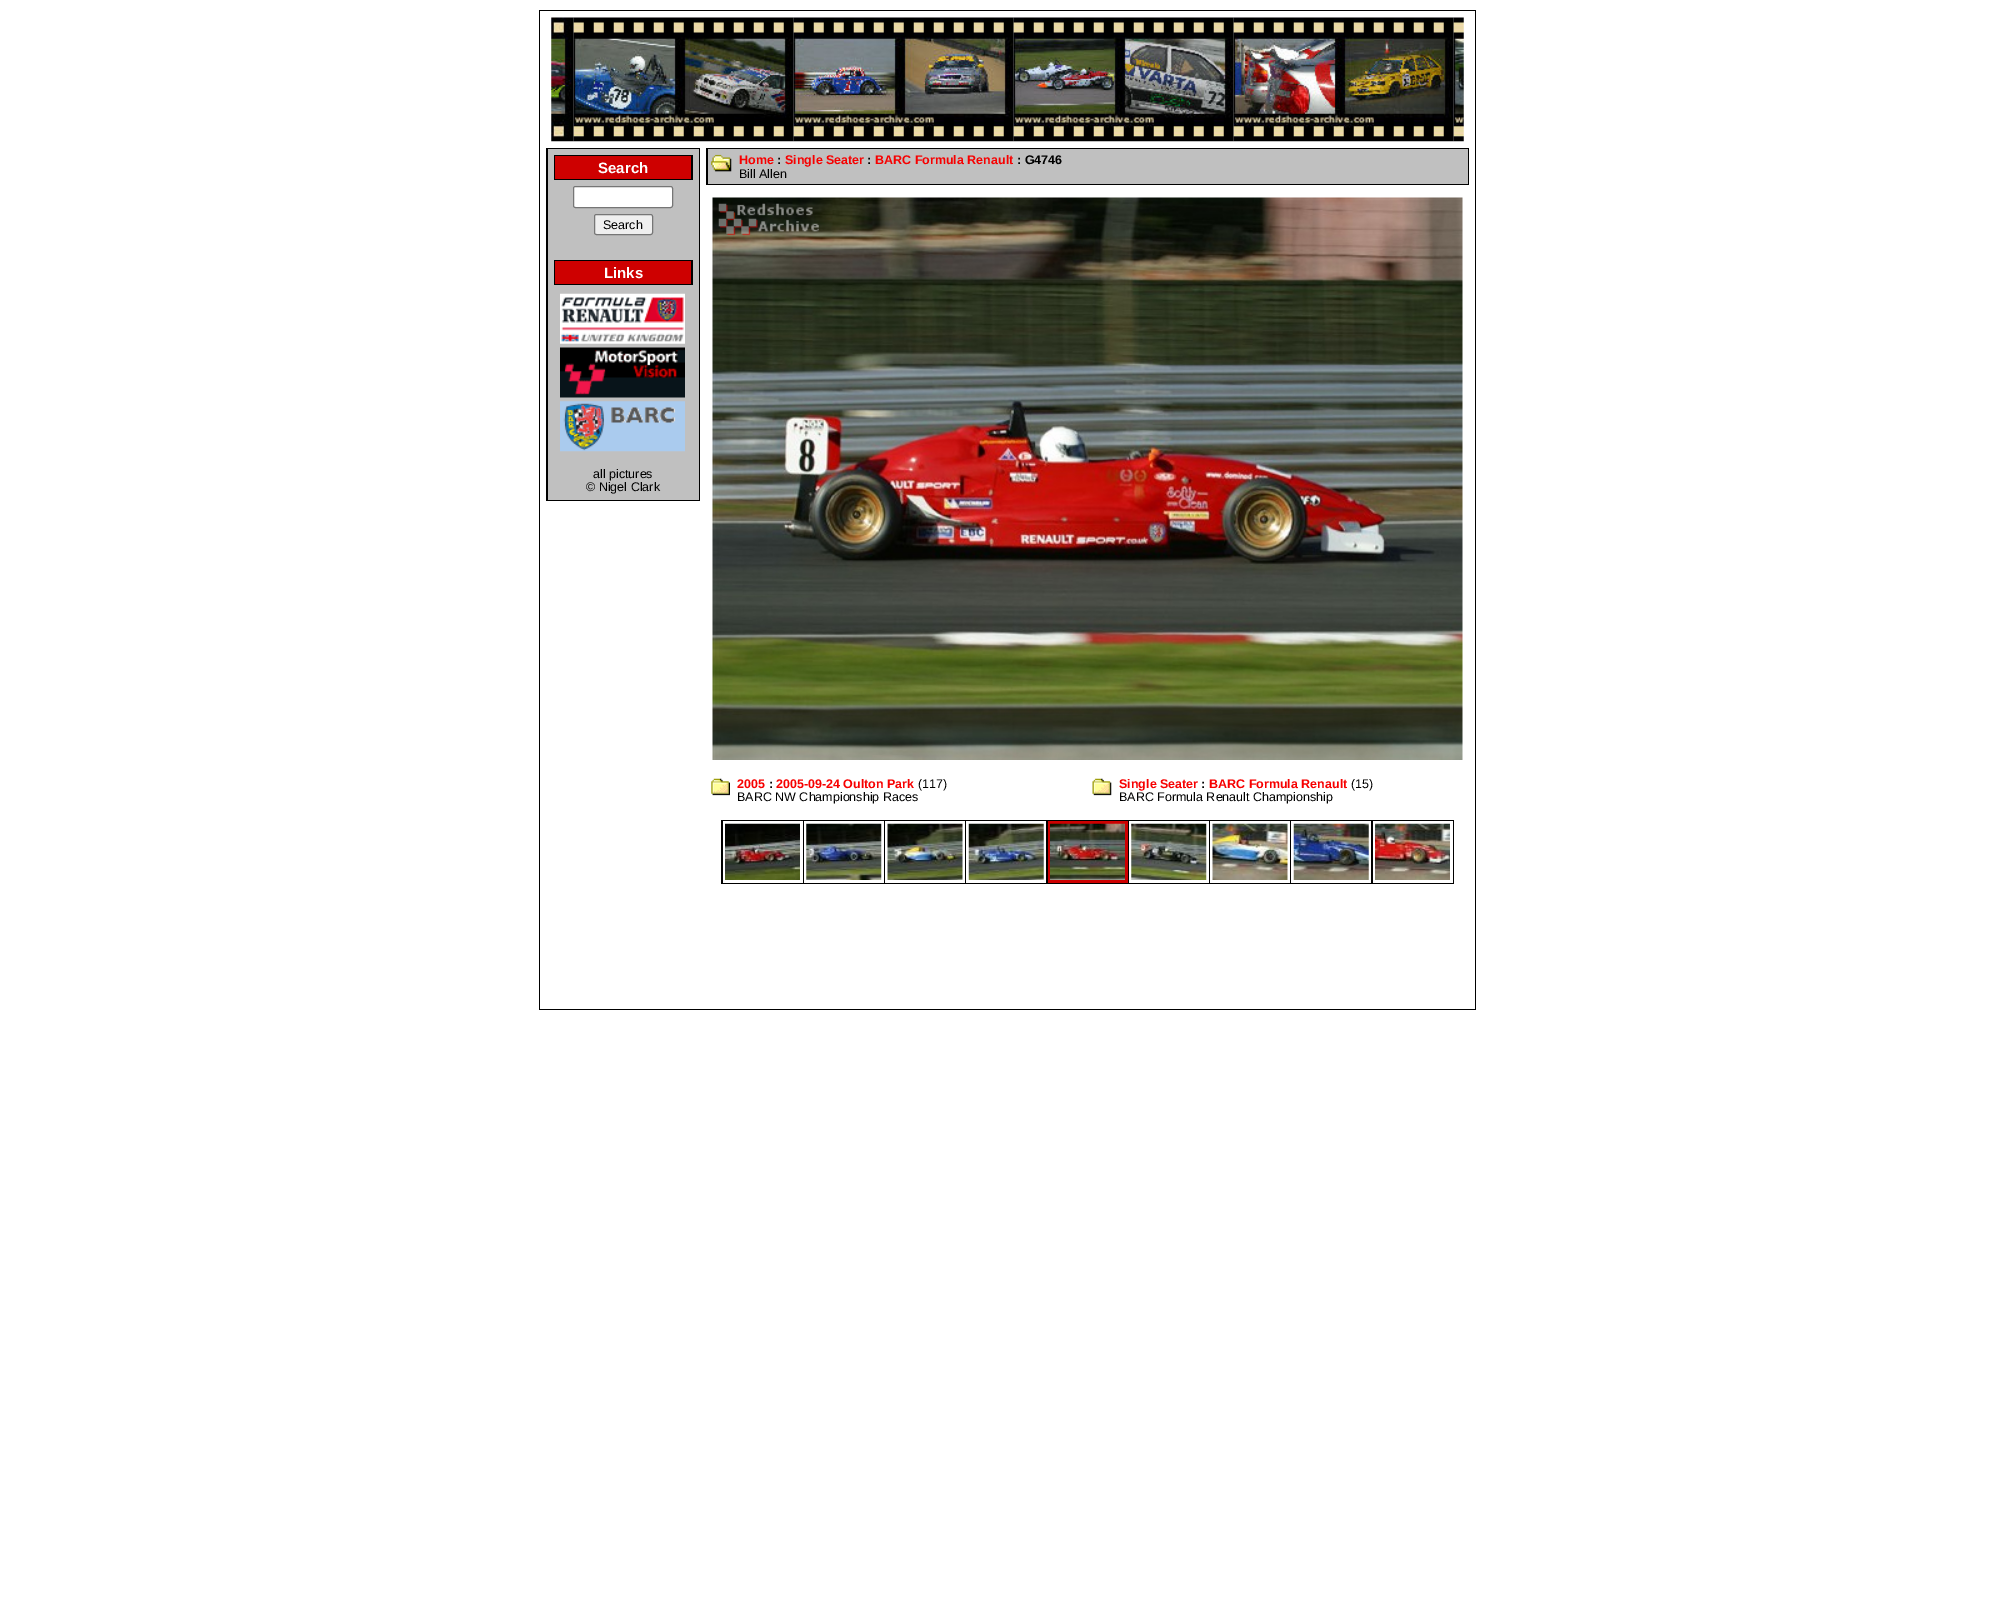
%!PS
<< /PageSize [2014 1611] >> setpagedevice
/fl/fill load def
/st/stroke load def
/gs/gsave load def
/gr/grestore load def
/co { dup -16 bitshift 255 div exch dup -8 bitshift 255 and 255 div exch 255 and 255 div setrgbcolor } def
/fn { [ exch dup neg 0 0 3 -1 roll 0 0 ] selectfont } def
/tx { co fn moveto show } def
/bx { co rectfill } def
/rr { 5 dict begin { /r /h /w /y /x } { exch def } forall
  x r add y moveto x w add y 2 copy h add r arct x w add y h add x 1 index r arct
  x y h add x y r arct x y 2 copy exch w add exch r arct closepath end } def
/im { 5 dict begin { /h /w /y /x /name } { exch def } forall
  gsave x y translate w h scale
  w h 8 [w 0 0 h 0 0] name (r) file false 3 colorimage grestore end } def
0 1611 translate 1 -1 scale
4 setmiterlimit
0 0 2014 1611 16#FFFFFF bx
539 10 937 1000 16#000000 bx
540 11 935 998 16#FFFFFF bx
(media/1.raw) 551 17 23 125 im
(media/2.raw) 573 17 221 125 im
(media/3.raw) 793 17 221 125 im
(media/4.raw) 1013 17 221 125 im
(media/5.raw) 1233 17 221 125 im
(media/6.raw) 1453 17 11 125 im
546 148 154 353 16#000000 bx
548 149 151 351 16#C0C0C0 bx
554 155 139 25 16#000000 bx
555 156 136 23 16#CE0000 bx
16#FFFFFF co
573.5 186.5 99 21 2 rr gs fl gr
16#767676 co
st
16#EFEFEF co
594.5 214.5 58 20 2 rr gs fl gr
16#767676 co
st
554 260 139 25 16#000000 bx
555 261 136 23 16#CE0000 bx
(media/7.raw) 560 293 125 51 im
(media/8.raw) 560 347 125 51 im
(media/9.raw) 560 401 125 51 im
706 148 763 37 16#000000 bx
708 149 760 35 16#C0C0C0 bx
(media/10.raw) 711 154 21 18 im
(media/11.raw) 712 197 751 563 im
(media/12.raw) 711 778 19 18 im
(media/13.raw) 1092 778 20 18 im
721 820 733 64 16#000000 bx
723 821 80 62 16#FFFFFF bx
(media/14.raw) 725 823 75 57 im
804 821 80 62 16#FFFFFF bx
(media/15.raw) 806 823 76 57 im
885 821 80 62 16#FFFFFF bx
(media/16.raw) 887 823 76 57 im
966 821 80 62 16#FFFFFF bx
(media/17.raw) 968 823 76 57 im
1048 821 80 62 16#CE0000 bx
(media/18.raw) 1050 823 75 57 im
1129 821 80 62 16#FFFFFF bx
(media/19.raw) 1131 823 76 57 im
1210 821 80 62 16#FFFFFF bx
(media/20.raw) 1212 823 76 57 im
1291 821 80 62 16#FFFFFF bx
(media/21.raw) 1293 823 76 57 im
1373 821 80 62 16#FFFFFF bx
(media/22.raw) 1375 823 75 57 im
(Search) 598 173 /LiberationSans-Bold 15 16#FFFFFF tx
(Search) 603 229 /LiberationSans-Regular 12.5 16#000000 tx
(Links) 604 278 /LiberationSans-Bold 15 16#FFFFFF tx
(all pictures) 593 478 /LiberationSans-Regular 12.5 16#000000 tx
(© Nigel Clark) 586 491 /LiberationSans-Regular 12.5 16#000000 tx
(Home) 739 164 /LiberationSans-Bold 12.5 16#F70000 tx
(:) 777 164 /LiberationSans-Bold 12.5 16#000000 tx
(Single Seater) 785 164 /LiberationSans-Bold 12.5 16#F70000 tx
(:) 867 164 /LiberationSans-Bold 12.5 16#000000 tx
(BARC Formula Renault) 875 164 /LiberationSans-Bold 12.5 16#F70000 tx
(: G4746) 1017 164 /LiberationSans-Bold 12.5 16#000000 tx
(Bill Allen) 739 178 /LiberationSans-Regular 12.5 16#000000 tx
(2005) 737 788 /LiberationSans-Bold 12.5 16#F70000 tx
(:) 769 788 /LiberationSans-Bold 12.5 16#000000 tx
(2005-09-24 Oulton Park) 776 788 /LiberationSans-Bold 12.5 16#F70000 tx
(\(117\)) 918 788 /LiberationSans-Regular 12.5 16#000000 tx
(BARC NW Championship Races) 737 801 /LiberationSans-Regular 12.5 16#000000 tx
(Single Seater) 1119 788 /LiberationSans-Bold 12.5 16#F70000 tx
(:) 1201 788 /LiberationSans-Bold 12.5 16#000000 tx
(BARC Formula Renault) 1209 788 /LiberationSans-Bold 12.5 16#F70000 tx
(\(15\)) 1351 788 /LiberationSans-Regular 12.5 16#000000 tx
(BARC Formula Renault Championship) 1119 801 /LiberationSans-Regular 12.5 16#000000 tx
showpage
